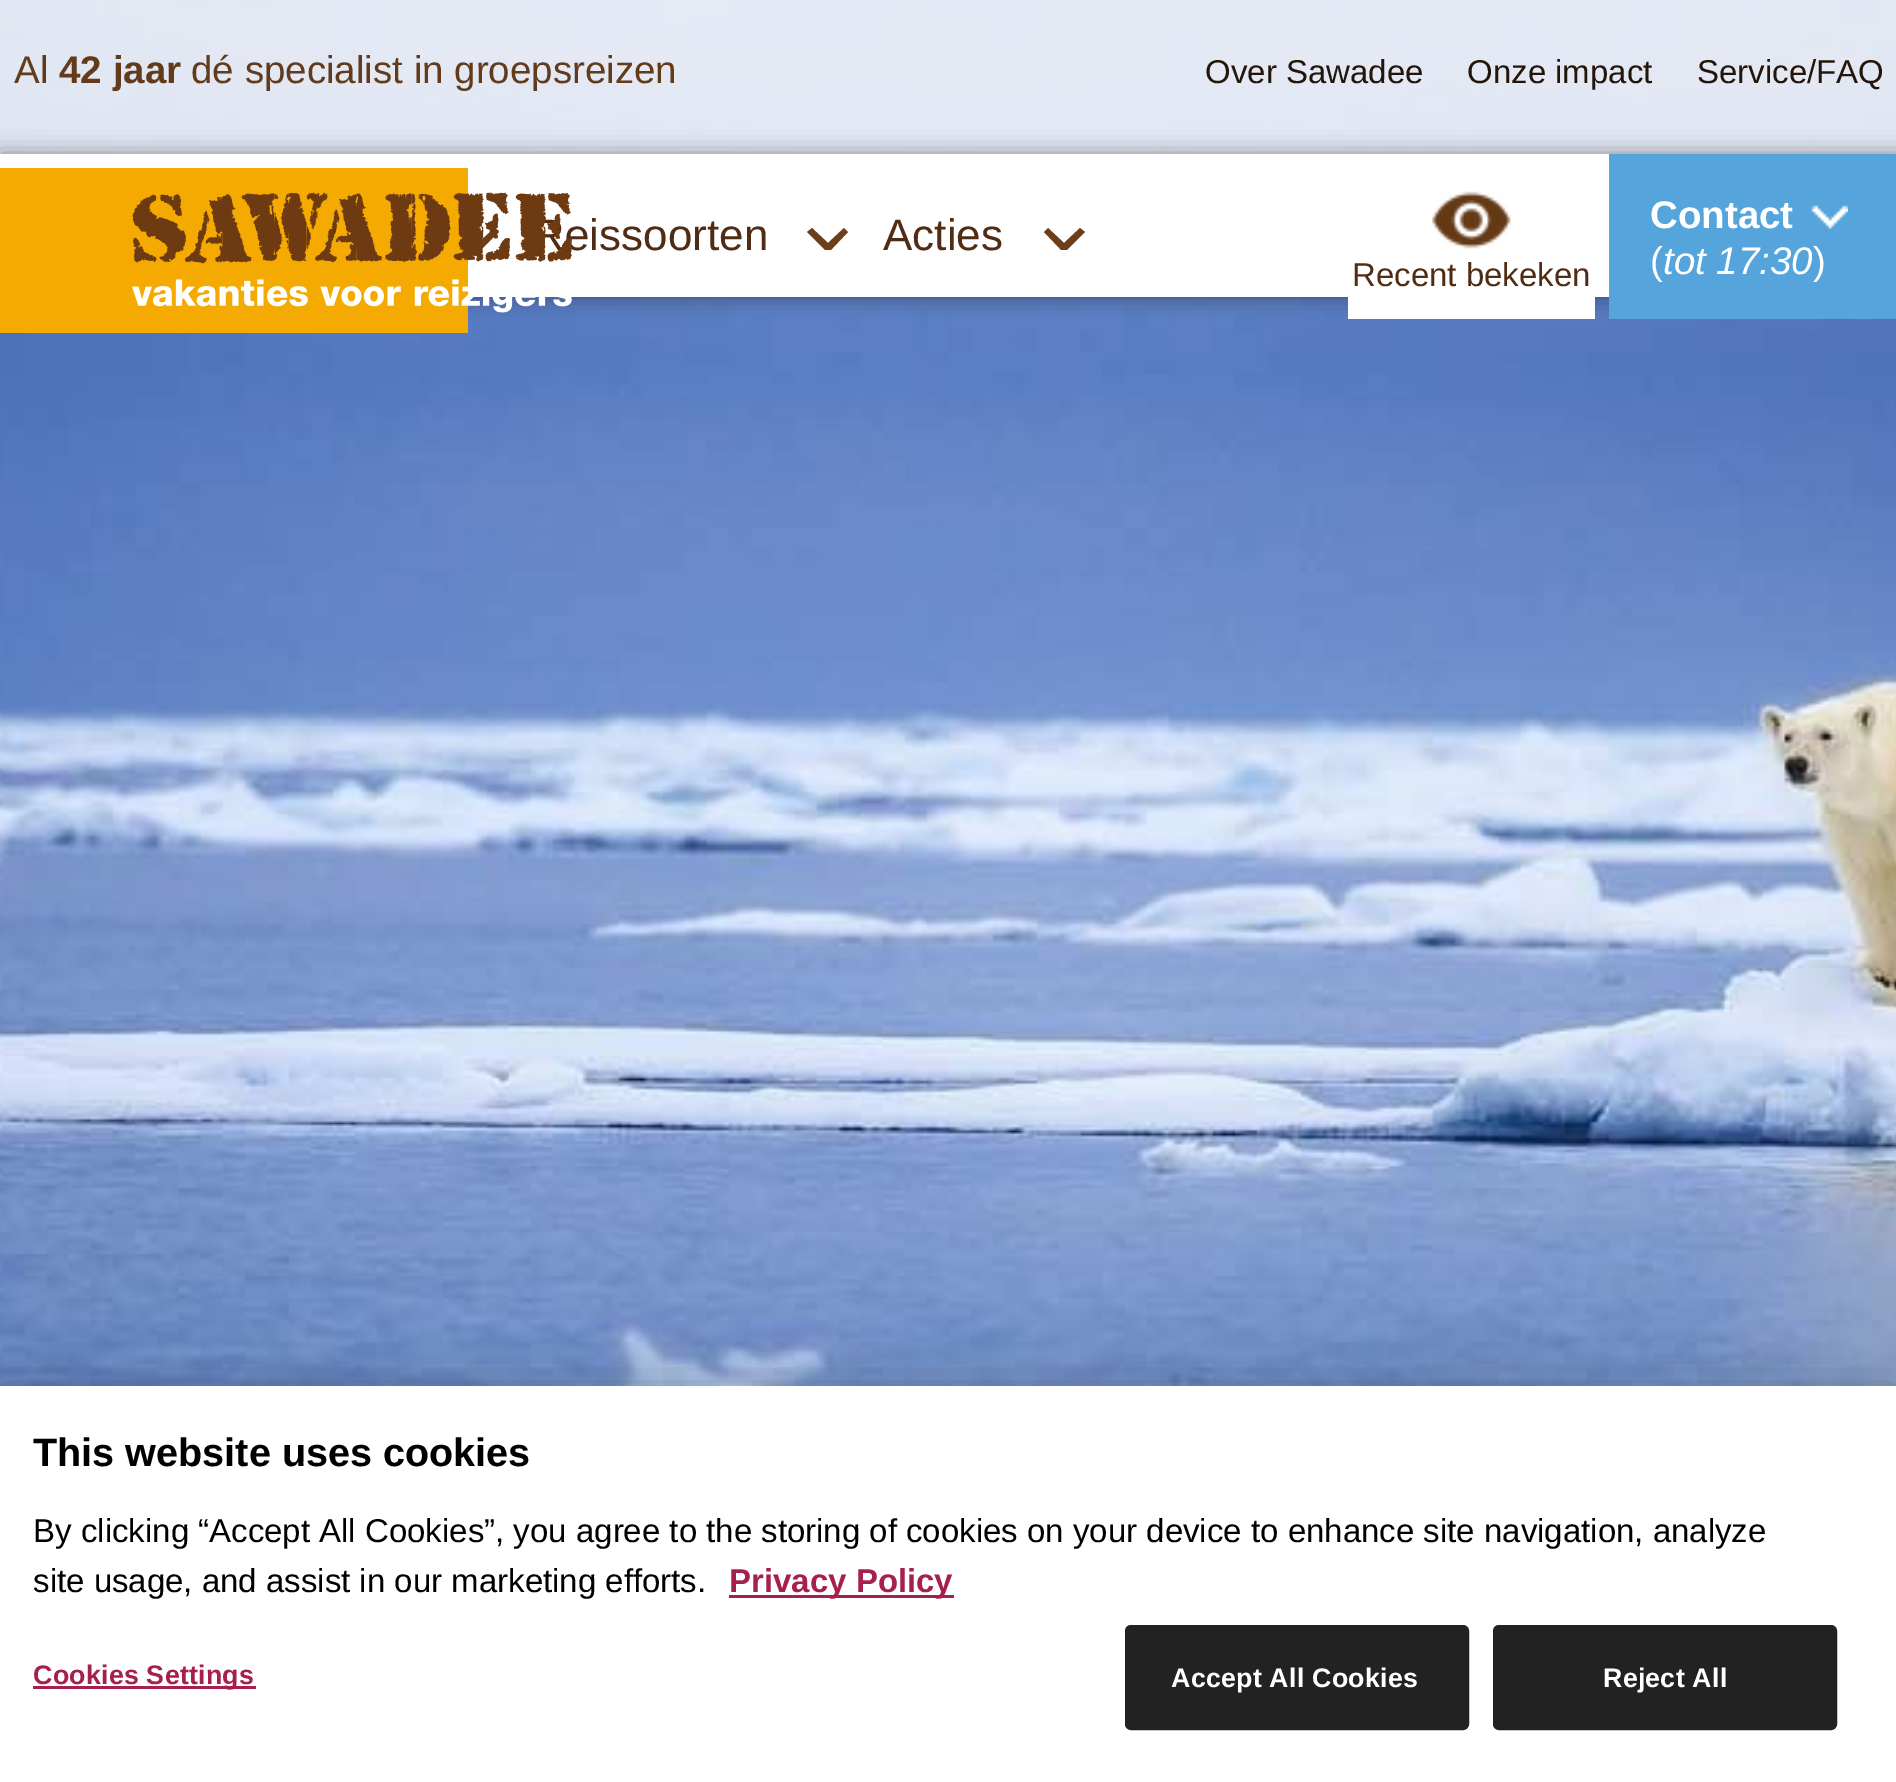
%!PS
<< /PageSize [1896 1782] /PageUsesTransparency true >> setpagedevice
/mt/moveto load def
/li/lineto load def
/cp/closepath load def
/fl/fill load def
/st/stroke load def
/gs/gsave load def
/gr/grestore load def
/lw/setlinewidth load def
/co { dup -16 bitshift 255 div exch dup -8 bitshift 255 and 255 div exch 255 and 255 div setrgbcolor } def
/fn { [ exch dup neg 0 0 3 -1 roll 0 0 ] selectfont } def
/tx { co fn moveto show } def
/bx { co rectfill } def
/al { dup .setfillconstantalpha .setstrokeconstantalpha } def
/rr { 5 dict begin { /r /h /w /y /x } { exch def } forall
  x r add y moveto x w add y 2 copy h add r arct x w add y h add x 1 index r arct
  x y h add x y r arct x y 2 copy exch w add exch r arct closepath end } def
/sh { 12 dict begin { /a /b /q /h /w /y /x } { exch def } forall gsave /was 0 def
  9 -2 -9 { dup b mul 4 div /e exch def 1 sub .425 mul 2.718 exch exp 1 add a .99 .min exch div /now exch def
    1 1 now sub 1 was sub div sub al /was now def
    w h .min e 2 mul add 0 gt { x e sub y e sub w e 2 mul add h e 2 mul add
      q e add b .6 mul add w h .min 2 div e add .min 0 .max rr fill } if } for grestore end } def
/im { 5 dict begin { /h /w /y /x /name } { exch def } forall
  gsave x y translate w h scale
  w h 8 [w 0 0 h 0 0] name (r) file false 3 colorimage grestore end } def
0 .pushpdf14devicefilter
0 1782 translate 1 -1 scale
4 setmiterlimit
0 0 1896 1782 16#FFFFFF bx
(media/1.raw) 0 0 1896 1386 im
0.8 al
0 0 1896 154 16#FFFFFF bx
1 al
16#000000 co
0 154 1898 143 0 11 .4 sh
0 154 1609 143 16#FFFFFF bx
16#6C3E1A co
463 228 mt 478 243 li 494 228 li 499 232 li 478 253 li 458 232 li cp fl
0 168 468 165 16#F4AA00 bx
gs
787 226 82 24 rectclip
16#6C3E1A co
812 228 mt 828 243 li 844 228 li 848 232 li 828 253 li 807 232 li cp fl
gr
gs
1023 226 83 24 rectclip
16#6C3E1A co
1048 228 mt 1064 243 li 1080 228 li 1085 232 li 1064 253 li 1044 232 li cp fl
gr
1609 154 287 165 16#55A4DB bx
(media/3.raw) 1811 205 37 25 im
1348 297 247 22 16#FFFFFF bx
(media/4.raw) 1432 191 79 58 im
16#000000 co
0 1386 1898 396 0 25 .2 sh
0 1386 1896 396 16#FFFFFF bx
729 1595 225 3 16#A71F50 bx
33 1686 223 3 16#A71F50 bx
16#222222 co
1126.5 1626.5 341 102 4.5 rr gs fl gr
3 lw
st
1494.5 1626.5 341 102 4.5 rr gs fl gr
st
(Al) 14 83 /LiberationSans-Regular 38.5 16#633B1B tx
(42 jaar) 59 83 /LiberationSans-Bold 38.5 16#633B1B tx
(dé specialist in groepsreizen) 191 83 /LiberationSans-Regular 38.5 16#633B1B tx
(Over Sawadee) 1205 83 /LiberationSans-Regular 33 16#231509 tx
(Onze impact) 1467 83 /LiberationSans-Regular 33 16#231509 tx
(Service/FAQ) 1697 83 /LiberationSans-Regular 33 16#231509 tx
(eissoorten) 565 250 /LiberationSans-Regular 44 16#502C15 tx
(media/2.raw) 132 192 440 121 im
(Acties) 883 250 /LiberationSans-Regular 44 16#502C15 tx
(Contact) 1650 228 /LiberationSans-Bold 38.5 16#FFFFFF tx
(\() 1650 274 /LiberationSans-Regular 38.5 16#FFFFFF tx
(tot 17:30) 1663 274 /LiberationSans-Italic 38.5 16#FFFFFF tx
(\)) 1813 274 /LiberationSans-Regular 38.5 16#FFFFFF tx
(Recent bekeken) 1352 286 /LiberationSans-Regular 33 16#502C15 tx
(This website uses cookies) 33 1466 /LiberationSans-Bold 39.6 16#000000 tx
(By clicking “Accept All Cookies”, you agree to the storing of cookies on your device to enhance site navigation, analyze) 33 1542 /LiberationSans-Regular 33 16#000000 tx
(site usage, and assist in our marketing efforts.) 33 1592 /LiberationSans-Regular 33 16#000000 tx
(Privacy Policy) 729 1592 /LiberationSans-Bold 33 16#A71F50 tx
/LiberationSans-Bold 26.75 fn
33 1684 mt .25 0 (Cookies Settings) ashow
16#FFFFFF co
1171 1687 mt .25 0 (Accept All Cookies) ashow
1603 1687 mt .25 0 (Reject All) ashow
.poppdf14devicefilter showpage
